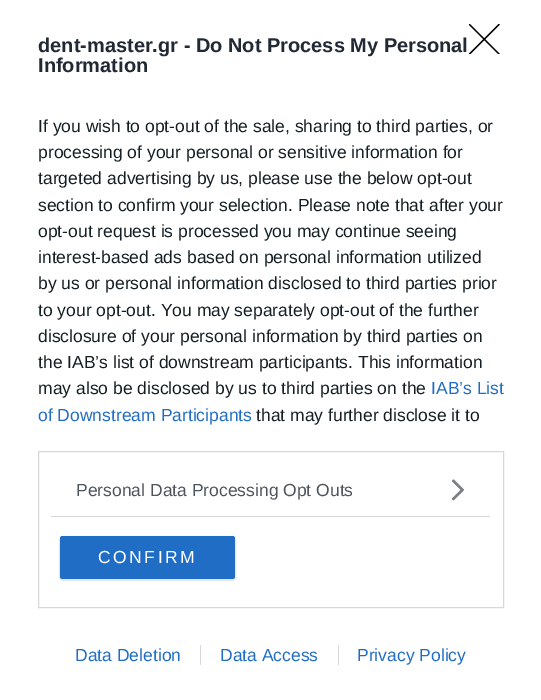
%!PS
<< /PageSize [541 700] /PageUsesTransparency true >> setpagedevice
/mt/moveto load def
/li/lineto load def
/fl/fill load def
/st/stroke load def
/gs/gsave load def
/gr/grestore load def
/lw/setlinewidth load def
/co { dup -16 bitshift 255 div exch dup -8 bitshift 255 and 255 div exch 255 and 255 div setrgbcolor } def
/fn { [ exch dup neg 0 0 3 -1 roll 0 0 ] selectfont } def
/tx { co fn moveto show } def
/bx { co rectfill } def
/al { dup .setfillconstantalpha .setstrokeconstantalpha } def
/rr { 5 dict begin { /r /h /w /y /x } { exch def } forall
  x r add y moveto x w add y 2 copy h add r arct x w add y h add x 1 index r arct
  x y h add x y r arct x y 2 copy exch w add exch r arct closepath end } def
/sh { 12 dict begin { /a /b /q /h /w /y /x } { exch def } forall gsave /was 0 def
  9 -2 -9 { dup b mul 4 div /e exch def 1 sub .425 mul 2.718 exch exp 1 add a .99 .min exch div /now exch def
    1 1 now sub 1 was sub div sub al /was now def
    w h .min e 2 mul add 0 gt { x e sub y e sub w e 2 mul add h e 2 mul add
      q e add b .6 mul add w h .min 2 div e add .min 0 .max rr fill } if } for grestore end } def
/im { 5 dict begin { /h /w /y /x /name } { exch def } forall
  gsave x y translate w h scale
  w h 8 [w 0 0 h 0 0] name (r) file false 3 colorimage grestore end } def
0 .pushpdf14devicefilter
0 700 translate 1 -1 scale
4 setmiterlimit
0 0 541 700 16#FFFFFF bx
gs
469 24 31 30 rectclip
16#000000 co
1.3 lw
1 setlinecap
1 setlinejoin
469.5 24.5 mt 499 54 li 499 24.5 mt 469.5 54 li st
gr
16#D8D8D8 co
38.5 451.5 465 156 rectstroke
51 516 439 1 16#D8D8D8 bx
(media/1.raw) 451 479 13 22 im
16#000000 co
59 536 177 45 4 .5 .1 sh
16#206DC5 co
60 536 175 43 2.5 rr fl
200 645 1 20 16#D8D8D8 bx
338 645 1 20 16#D8D8D8 bx
(dent-master.gr - Do Not Process My Personal) 38 52 /LiberationSans-Bold 20 16#212934 tx
(Information) 38 72 /LiberationSans-Bold 20 16#212934 tx
(If you wish to opt-out of the sale, sharing to third parties, or) 38 132 /LiberationSans-Regular 17.5 16#141E23 tx
(processing of your personal or sensitive information for) 38 158 /LiberationSans-Regular 17.5 16#141E23 tx
(targeted advertising by us, please use the below opt-out) 38 184 /LiberationSans-Regular 17.5 16#141E23 tx
(section to confirm your selection. Please note that after your) 38 211 /LiberationSans-Regular 17.5 16#141E23 tx
(opt-out request is processed you may continue seeing) 38 237 /LiberationSans-Regular 17.5 16#141E23 tx
(interest-based ads based on personal information utilized) 38 263 /LiberationSans-Regular 17.5 16#141E23 tx
(by us or personal information disclosed to third parties prior) 38 289 /LiberationSans-Regular 17.5 16#141E23 tx
(to your opt-out. You may separately opt-out of the further) 38 316 /LiberationSans-Regular 17.5 16#141E23 tx
(disclosure of your personal information by third parties on) 38 342 /LiberationSans-Regular 17.5 16#141E23 tx
(the IAB’s list of downstream participants. This information) 38 368 /LiberationSans-Regular 17.5 16#141E23 tx
(may also be disclosed by us to third parties on the) 38 394 /LiberationSans-Regular 17.5 16#141E23 tx
(IAB’s List) 431 394 /LiberationSans-Regular 17.5 16#206DC5 tx
(of Downstream Participants) 38 421 /LiberationSans-Regular 17.5 16#206DC5 tx
(that may further disclose it to) 256 421 /LiberationSans-Regular 17.5 16#141E23 tx
(Personal Data Processing Opt Outs) 76 496 /LiberationSans-Regular 17.5 16#4D545D tx
16#FFFFFF co
98 563 mt 2.5 0 (CONFIRM) ashow
(Data Deletion) 75 661 /LiberationSans-Regular 17.5 16#206DC5 tx
(Data Access) 220 661 /LiberationSans-Regular 17.5 16#206DC5 tx
(Privacy Policy) 357 661 /LiberationSans-Regular 17.5 16#206DC5 tx
.poppdf14devicefilter showpage
